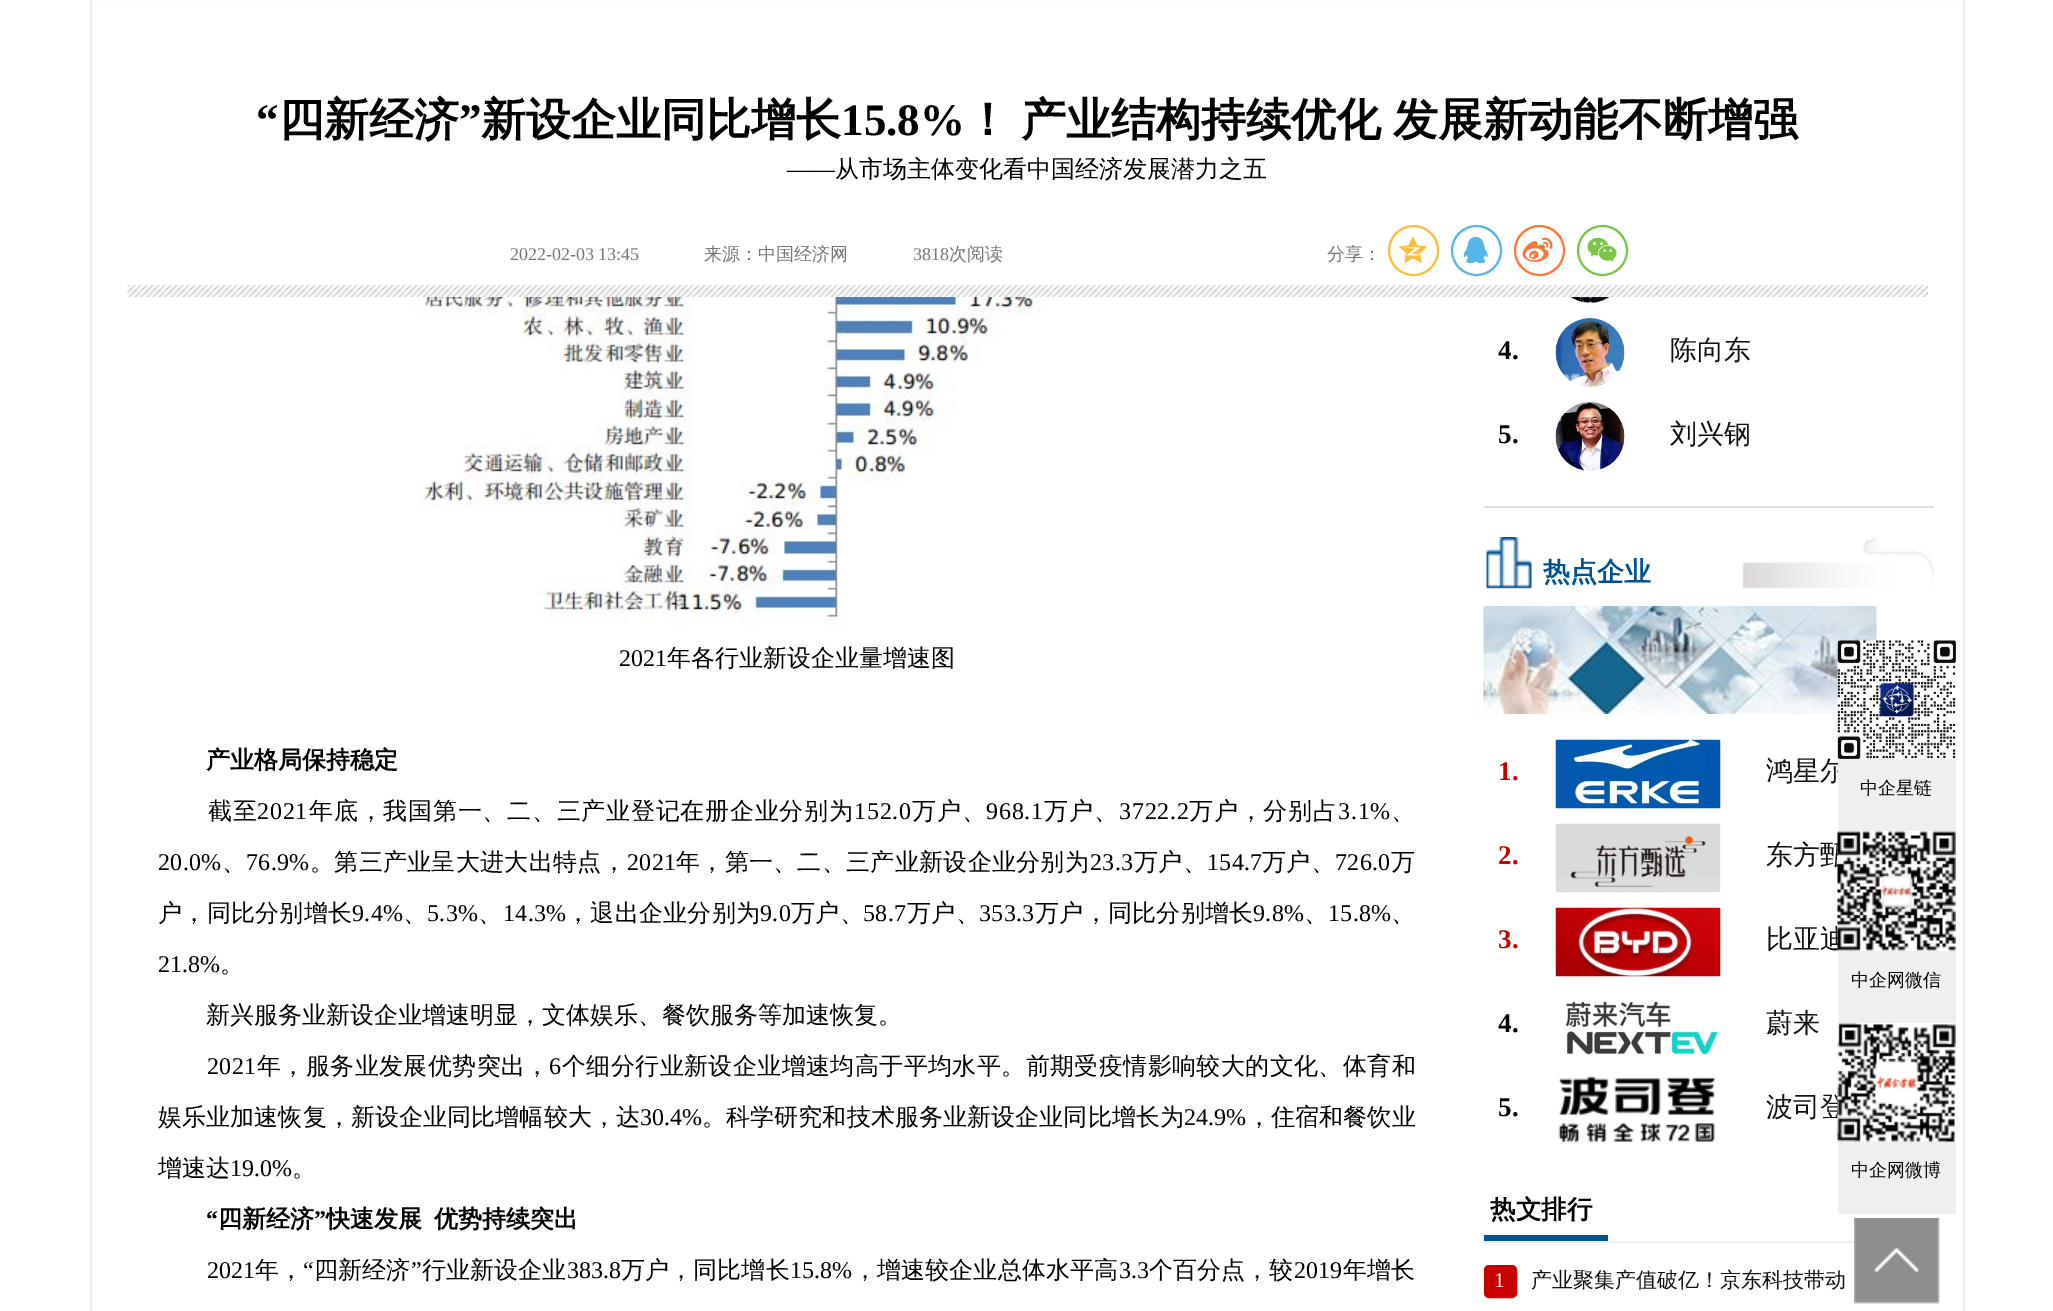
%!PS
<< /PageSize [2053 1311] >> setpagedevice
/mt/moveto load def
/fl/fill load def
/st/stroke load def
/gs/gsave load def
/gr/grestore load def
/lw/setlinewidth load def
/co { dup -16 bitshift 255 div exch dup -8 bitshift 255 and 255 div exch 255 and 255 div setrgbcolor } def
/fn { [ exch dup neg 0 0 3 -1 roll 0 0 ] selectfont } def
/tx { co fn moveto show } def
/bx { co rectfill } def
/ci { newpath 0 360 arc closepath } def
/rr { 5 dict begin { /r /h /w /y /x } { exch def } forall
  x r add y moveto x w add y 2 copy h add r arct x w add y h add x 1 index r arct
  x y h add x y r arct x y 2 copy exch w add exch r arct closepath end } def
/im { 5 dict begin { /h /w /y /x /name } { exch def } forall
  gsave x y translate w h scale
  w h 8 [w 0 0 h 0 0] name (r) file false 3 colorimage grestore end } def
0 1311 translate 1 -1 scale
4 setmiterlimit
0 0 2053 1311 16#FFFFFF bx
16#EFEFEF co
2 lw
91 -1 1873 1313 rectstroke
(media/1.raw) 127 284 1801 13 im
16#FDBE3D co
1413.5 250.5 24.5 ci st
(media/2.raw) 1399 236 28 27 im
16#56B6E7 co
1476.5 250.5 24.5 ci st
(media/3.raw) 1463 236 25 28 im
16#FF763B co
1539.5 250.5 24.5 ci st
(media/4.raw) 1522 237 31 25 im
16#7BC549 co
1602.5 250.5 24.5 ci st
(media/5.raw) 1587 237 30 25 im
(media/6.raw) 355 297 865 329 im
1484 506 450 2 16#DDDDDD bx
(media/7.raw) 1570 297 40 6 im
(media/8.raw) 1555 318 70 69 im
(media/9.raw) 1555 402 70 69 im
(media/10.raw) 1486 537 448 54 im
(media/11.raw) 1483 606 394 108 im
(media/12.raw) 1555 739 166 70 im
(media/13.raw) 1555 823 166 70 im
(media/14.raw) 1555 907 166 70 im
(media/15.raw) 1565 1001 153 54 im
(media/16.raw) 1558 1076 157 68 im
1484 1241 370 2 16#EFEFEF bx
1484 1235 124 6 16#015293 bx
16#C90001 co
1485 1266 31 31 4 rr gs fl gr
st
(media/20.raw) 1854 1218 86 86 im
(“) 256 135 /LiberationSerif-Bold 45 16#000000 tx
(四新经济) 279 135 /WenQuanYiZenHei-Bold 45 16#000000 tx
(”) 459 135 /LiberationSerif-Bold 45 16#000000 tx
(新设企业同比增长) 481 135 /WenQuanYiZenHei-Bold 45 16#000000 tx
(15.8%) 841 135 /LiberationSerif-Bold 45 16#000000 tx
/WenQuanYiZenHei-Bold 45 fn
965 135 mt -2 0 32 (！ 产业结构持续优化 发展新动能不断增强) widthshow
(——) 787 177 /LiberationSerif-Regular 24 16#000000 tx
(从市场主体变化看中国经济发展潜力之五) 835 177 /WenQuanYiZenHei-Medium 24 16#000000 tx
(2022-02-03 13:45) 510 260 /LiberationSerif-Regular 18 16#777777 tx
(来源：中国经济网) 704 260 /WenQuanYiZenHei-Medium 18 16#777777 tx
(3818) 913 260 /LiberationSerif-Regular 18 16#777777 tx
(次阅读) 949 260 /WenQuanYiZenHei-Medium 18 16#777777 tx
(分享：) 1327 260 /WenQuanYiZenHei-Medium 18 16#777777 tx
(2021) 619 666 /LiberationSerif-Regular 24 16#000000 tx
(年各行业新设企业量增速图) 667 666 /WenQuanYiZenHei-Medium 24 16#000000 tx
(产业格局保持稳定) 206 768 /WenQuanYiZenHei-Bold 24 16#000000 tx
/WenQuanYiZenHei-Medium 24 fn
208 819 mt .75 0 (截至) ashow
/LiberationSerif-Regular 24 fn
257 819 mt .75 0 (2021) ashow
/WenQuanYiZenHei-Medium 24 fn
309 819 mt .75 0 (年底，我国第一、二、三产业登记在册企业分别为) ashow
/LiberationSerif-Regular 24 fn
854 819 mt .75 0 (152.0) ashow
/WenQuanYiZenHei-Medium 24 fn
912 819 mt .75 0 (万户、) ashow
/LiberationSerif-Regular 24 fn
986 819 mt .75 0 (968.1) ashow
/WenQuanYiZenHei-Medium 24 fn
1044 819 mt .75 0 (万户、) ashow
/LiberationSerif-Regular 24 fn
1119 819 mt .75 0 (3722.2) ashow
/WenQuanYiZenHei-Medium 24 fn
1189 819 mt .75 0 (万户，分别占) ashow
/LiberationSerif-Regular 24 fn
1338 819 mt .75 0 (3.1%) ashow
/WenQuanYiZenHei-Medium 24 fn
1391 819 mt .75 0 (、) ashow
/LiberationSerif-Regular 24 fn
158 870 mt .3 0 (20.0%) ashow
/WenQuanYiZenHei-Medium 24 fn
222 870 mt .3 0 (、) ashow
/LiberationSerif-Regular 24 fn
246 870 mt .3 0 (76.9%) ashow
/WenQuanYiZenHei-Medium 24 fn
310 870 mt .3 0 (。第三产业呈大进大出特点，) ashow
/LiberationSerif-Regular 24 fn
627 870 mt .3 0 (2021) ashow
/WenQuanYiZenHei-Medium 24 fn
676 870 mt .3 0 (年，第一、二、三产业新设企业分别为) ashow
/LiberationSerif-Regular 24 fn
1090 870 mt .3 0 (23.3) ashow
/WenQuanYiZenHei-Medium 24 fn
1134 870 mt .3 0 (万户、) ashow
/LiberationSerif-Regular 24 fn
1207 870 mt .3 0 (154.7) ashow
/WenQuanYiZenHei-Medium 24 fn
1262 870 mt .3 0 (万户、) ashow
/LiberationSerif-Regular 24 fn
1335 870 mt .3 0 (726.0) ashow
/WenQuanYiZenHei-Medium 24 fn
1391 870 mt .3 0 (万) ashow
158 921 mt .25 0 (户，同比分别增长) ashow
/LiberationSerif-Regular 24 fn
352 921 mt .25 0 (9.4%) ashow
/WenQuanYiZenHei-Medium 24 fn
403 921 mt .25 0 (、) ashow
/LiberationSerif-Regular 24 fn
427 921 mt .25 0 (5.3%) ashow
/WenQuanYiZenHei-Medium 24 fn
478 921 mt .25 0 (、) ashow
/LiberationSerif-Regular 24 fn
503 921 mt .25 0 (14.3%) ashow
/WenQuanYiZenHei-Medium 24 fn
566 921 mt .25 0 (，退出企业分别为) ashow
/LiberationSerif-Regular 24 fn
760 921 mt .25 0 (9.0) ashow
/WenQuanYiZenHei-Medium 24 fn
791 921 mt .25 0 (万户、) ashow
/LiberationSerif-Regular 24 fn
863 921 mt .25 0 (58.7) ashow
/WenQuanYiZenHei-Medium 24 fn
907 921 mt .25 0 (万户、) ashow
/LiberationSerif-Regular 24 fn
979 921 mt .25 0 (353.3) ashow
/WenQuanYiZenHei-Medium 24 fn
1035 921 mt .25 0 (万户，同比分别增长) ashow
/LiberationSerif-Regular 24 fn
1253 921 mt .25 0 (9.8%) ashow
/WenQuanYiZenHei-Medium 24 fn
1304 921 mt .25 0 (、) ashow
/LiberationSerif-Regular 24 fn
1328 921 mt .25 0 (15.8%) ashow
/WenQuanYiZenHei-Medium 24 fn
1391 921 mt .25 0 (、) ashow
(21.8%) 158 972 /LiberationSerif-Regular 24 16#000000 tx
(。) 220 972 /WenQuanYiZenHei-Medium 24 16#000000 tx
(新兴服务业新设企业增速明显，文体娱乐、餐饮服务等加速恢复。) 206 1023 /WenQuanYiZenHei-Medium 24 16#000000 tx
/LiberationSerif-Regular 24 fn
207 1074 mt .4 0 (2021) ashow
/WenQuanYiZenHei-Medium 24 fn
257 1074 mt .4 0 (年，服务业发展优势突出，) ashow
/LiberationSerif-Regular 24 fn
549 1074 mt .4 0 (6) ashow
/WenQuanYiZenHei-Medium 24 fn
562 1074 mt .4 0 (个细分行业新设企业增速均高于平均水平。前期受疫情影响较大的文化、体育和) ashow
158 1125 mt .1 0 (娱乐业加速恢复，新设企业同比增幅较大，达) ashow
/LiberationSerif-Regular 24 fn
640 1125 mt .1 0 (30.4%) ashow
/WenQuanYiZenHei-Medium 24 fn
702 1125 mt .1 0 (。科学研究和技术服务业新设企业同比增长为) ashow
/LiberationSerif-Regular 24 fn
1184 1125 mt .1 0 (24.9%) ashow
/WenQuanYiZenHei-Medium 24 fn
1247 1125 mt .1 0 (，住宿和餐饮业) ashow
(增速达) 158 1176 /WenQuanYiZenHei-Medium 24 16#000000 tx
(19.0%) 230 1176 /LiberationSerif-Regular 24 16#000000 tx
(。) 292 1176 /WenQuanYiZenHei-Medium 24 16#000000 tx
(“) 206 1227 /LiberationSerif-Bold 24 16#000000 tx
(四新经济) 218 1227 /WenQuanYiZenHei-Bold 24 16#000000 tx
(”) 314 1227 /LiberationSerif-Bold 24 16#000000 tx
(快速发展) 326 1227 /WenQuanYiZenHei-Bold 24 16#000000 tx
(优势持续突出) 434 1227 /WenQuanYiZenHei-Bold 24 16#000000 tx
/LiberationSerif-Regular 24 fn
207 1278 mt .1 0 (2021) ashow
/WenQuanYiZenHei-Medium 24 fn
255 1278 mt .1 0 (年，) ashow
/LiberationSerif-Regular 24 fn
303 1278 mt .1 0 (“) ashow
/WenQuanYiZenHei-Medium 24 fn
314 1278 mt .1 0 (四新经济) ashow
/LiberationSerif-Regular 24 fn
411 1278 mt .1 0 (”) ashow
/WenQuanYiZenHei-Medium 24 fn
422 1278 mt .1 0 (行业新设企业) ashow
/LiberationSerif-Regular 24 fn
567 1278 mt .1 0 (383.8) ashow
/WenQuanYiZenHei-Medium 24 fn
621 1278 mt .1 0 (万户，同比增长) ashow
/LiberationSerif-Regular 24 fn
790 1278 mt .1 0 (15.8%) ashow
/WenQuanYiZenHei-Medium 24 fn
853 1278 mt .1 0 (，增速较企业总体水平高) ashow
/LiberationSerif-Regular 24 fn
1119 1278 mt .1 0 (3.3) ashow
/WenQuanYiZenHei-Medium 24 fn
1149 1278 mt .1 0 (个百分点，较) ashow
/LiberationSerif-Regular 24 fn
1294 1278 mt .1 0 (2019) ashow
/WenQuanYiZenHei-Medium 24 fn
1343 1278 mt .1 0 (年增长) ashow
(4.) 1498 359 /LiberationSerif-Bold 27 16#000000 tx
(陈向东) 1670 359 /WenQuanYiZenHei-Medium 27 16#111111 tx
(5.) 1498 443 /LiberationSerif-Bold 27 16#000000 tx
(刘兴钢) 1670 443 /WenQuanYiZenHei-Medium 27 16#111111 tx
(热点企业) 1543 581 /WenQuanYiZenHei-Bold 27 16#015293 tx
(1.) 1498 780 /LiberationSerif-Bold 27 16#C90001 tx
(鸿星尔) 1766 780 /WenQuanYiZenHei-Medium 27 16#111111 tx
(2.) 1498 864 /LiberationSerif-Bold 27 16#C90001 tx
(东方甄) 1766 864 /WenQuanYiZenHei-Medium 27 16#111111 tx
(3.) 1498 948 /LiberationSerif-Bold 27 16#C90001 tx
(比亚迪) 1766 948 /WenQuanYiZenHei-Medium 27 16#111111 tx
(4.) 1498 1032 /LiberationSerif-Bold 27 16#000000 tx
(蔚来) 1766 1032 /WenQuanYiZenHei-Medium 27 16#111111 tx
(5.) 1498 1116 /LiberationSerif-Bold 27 16#000000 tx
(波司登) 1766 1116 /WenQuanYiZenHei-Medium 27 16#111111 tx
(热文排行) 1490 1218 /WenQuanYiZenHei-Bold 25.5 16#000000 tx
(1) 1494 1287 /LiberationSerif-Regular 21 16#FFFFFF tx
(产业聚集产值破亿！京东科技带动) 1531 1287 /WenQuanYiZenHei-Medium 21 16#111111 tx
1838 641 118 573 16#EFEFEF bx
(media/17.raw) 1837 640 119 119 im
(中企星链) 1860 794 /WenQuanYiZenHei-Medium 18 16#000000 tx
(media/18.raw) 1837 831 119 120 im
(中企网微信) 1851 986 /WenQuanYiZenHei-Medium 18 16#000000 tx
(media/19.raw) 1837 1023 119 119 im
(中企网微博) 1851 1176 /WenQuanYiZenHei-Medium 18 16#000000 tx
showpage
